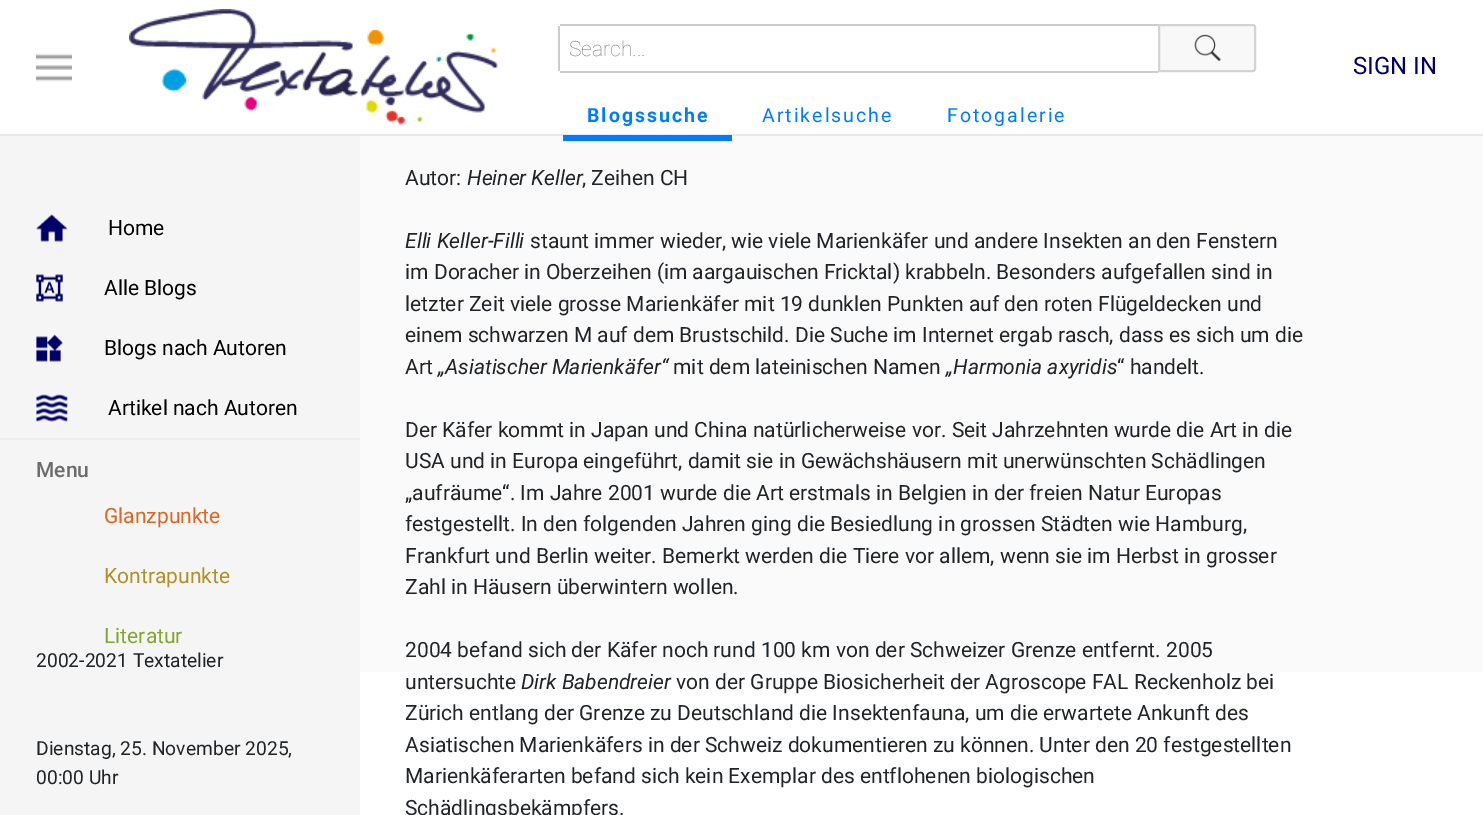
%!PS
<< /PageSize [1483 815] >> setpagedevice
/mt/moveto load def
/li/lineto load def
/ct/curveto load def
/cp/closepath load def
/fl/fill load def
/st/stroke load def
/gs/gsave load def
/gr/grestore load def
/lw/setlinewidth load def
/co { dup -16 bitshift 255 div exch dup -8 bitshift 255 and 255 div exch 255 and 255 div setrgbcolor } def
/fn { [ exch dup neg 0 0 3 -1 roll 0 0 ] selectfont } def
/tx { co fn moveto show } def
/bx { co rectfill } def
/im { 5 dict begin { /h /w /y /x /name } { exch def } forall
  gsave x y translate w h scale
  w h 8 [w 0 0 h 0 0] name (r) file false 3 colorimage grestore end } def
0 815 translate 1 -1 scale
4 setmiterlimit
0 0 1483 815 16#FFFFFF bx
360 136 1123 536 16#FAFAFA bx
0 134 1483 2 16#E8E8E8 bx
(media/1.raw) 36 53 36 29 im
(media/2.raw) 129 9 369 116 im
560 24 598 2 16#CCCCCC bx
560 71 598 2 16#CCCCCC bx
558 26 2 45 16#CCCCCC bx
16#F8F8F8 co
1159 25 mt 1253 25 li 1254 25 1255 26 1255 27 ct 1255 69 li 1255 70 1254 71 1253 71 ct 1159 71 li cp gs fl gr
16#D3D3D3 co
2 lw
st
(media/3.raw) 1194 34 27 28 im
563 135 169 6 16#007BFF bx
0 136 360 679 16#F5F5F5 bx
(media/4.raw) 36 214 32 28 im
(media/5.raw) 36 274 27 28 im
(media/6.raw) 36 334 27 28 im
(media/7.raw) 36 394 32 28 im
0 438 360 2 16#EDEDED bx
(Search...) 569 56 /Roboto-Thin 21 16#757575 tx
/Roboto-Bold 19.5 fn
16#007BFF co
587 122 mt 2 0 (Blogssuche) ashow
/Roboto-Regular 19.5 fn
762 122 mt 2 0 (Artikelsuche) ashow
947 122 mt 2 0 (Fotogalerie) ashow
(SIGN IN) 1353 74 /Roboto-Regular 24 16#00006A tx
(Home) 108 235 /Roboto-Regular 21 16#000000 tx
(Alle Blogs) 104 295 /Roboto-Regular 21 16#000000 tx
(Blogs nach Autoren) 104 355 /Roboto-Regular 21 16#000000 tx
(Artikel nach Autoren) 108 415 /Roboto-Regular 21 16#000000 tx
(Menu) 36 477 /Roboto-Medium 21 16#6C6C6C tx
(Glanzpunkte) 104 523 /Roboto-Regular 21 16#DF6521 tx
(Kontrapunkte) 104 583 /Roboto-Regular 21 16#B18F29 tx
(Literatur) 104 643 /Roboto-Regular 21 16#85A436 tx
(2002-2021 Textatelier) 36 667 /Roboto-Regular 19.25 16#212529 tx
(Dienstag, 25. November 2025,) 36 755 /Roboto-Regular 19.25 16#212529 tx
(00:00 Uhr) 36 784 /Roboto-Regular 19.25 16#212529 tx
(Autor:) 405 185 /Roboto-Regular 21 16#212529 tx
(Heiner Keller) 467 185 /Roboto-Italic 21 16#212529 tx
(, Zeihen CH) 582 185 /Roboto-Regular 21 16#212529 tx
(Elli Keller-Filli) 405 248 /Roboto-Italic 21 16#212529 tx
(staunt immer wieder, wie viele Marienkäfer und andere Insekten an den Fenstern) 530 248 /Roboto-Regular 21 16#212529 tx
(im Doracher in Oberzeihen \(im aargauischen Fricktal\) krabbeln. Besonders aufgefallen sind in) 405 279 /Roboto-Regular 21 16#212529 tx
(letzter Zeit viele grosse Marienkäfer mit 19 dunklen Punkten auf den roten Flügeldecken und) 405 311 /Roboto-Regular 21 16#212529 tx
(einem schwarzen M auf dem Brustschild. Die Suche im Internet ergab rasch, dass es sich um die) 405 342 /Roboto-Regular 21 16#212529 tx
(Art) 405 374 /Roboto-Regular 21 16#212529 tx
(„Asiatischer Marienkäfer“) 438 374 /Roboto-Italic 21 16#212529 tx
(mit dem lateinischen Namen) 673 374 /Roboto-Regular 21 16#212529 tx
(„Harmonia axyridis) 946 374 /Roboto-Italic 21 16#212529 tx
(“ handelt.) 1117 374 /Roboto-Regular 21 16#212529 tx
(Der Käfer kommt in Japan und China natürlicherweise vor. Seit Jahrzehnten wurde die Art in die) 405 437 /Roboto-Regular 21 16#212529 tx
(USA und in Europa eingeführt, damit sie in Gewächshäusern mit unerwünschten Schädlingen) 405 468 /Roboto-Regular 21 16#212529 tx
(„aufräume“. Im Jahre 2001 wurde die Art erstmals in Belgien in der freien Natur Europas) 405 500 /Roboto-Regular 21 16#212529 tx
(festgestellt. In den folgenden Jahren ging die Besiedlung in grossen Städten wie Hamburg,) 405 531 /Roboto-Regular 21 16#212529 tx
(Frankfurt und Berlin weiter. Bemerkt werden die Tiere vor allem, wenn sie im Herbst in grosser) 405 563 /Roboto-Regular 21 16#212529 tx
(Zahl in Häusern überwintern wollen.) 405 594 /Roboto-Regular 21 16#212529 tx
(2004 befand sich der Käfer noch rund 100 km von der Schweizer Grenze entfernt. 2005) 405 657 /Roboto-Regular 21 16#212529 tx
(untersuchte) 405 689 /Roboto-Regular 21 16#212529 tx
(Dirk Babendreier) 521 689 /Roboto-Italic 21 16#212529 tx
(von der Gruppe Biosicherheit der Agroscope FAL Reckenholz bei) 676 689 /Roboto-Regular 21 16#212529 tx
(Zürich entlang der Grenze zu Deutschland die Insektenfauna, um die erwartete Ankunft des) 405 720 /Roboto-Regular 21 16#212529 tx
(Asiatischen Marienkäfers in der Schweiz dokumentieren zu können. Unter den 20 festgestellten) 405 752 /Roboto-Regular 21 16#212529 tx
(Marienkäferarten befand sich kein Exemplar des entflohenen biologischen) 405 783 /Roboto-Regular 21 16#212529 tx
(Schädlingsbekämpfers.) 405 815 /Roboto-Regular 21 16#212529 tx
showpage
